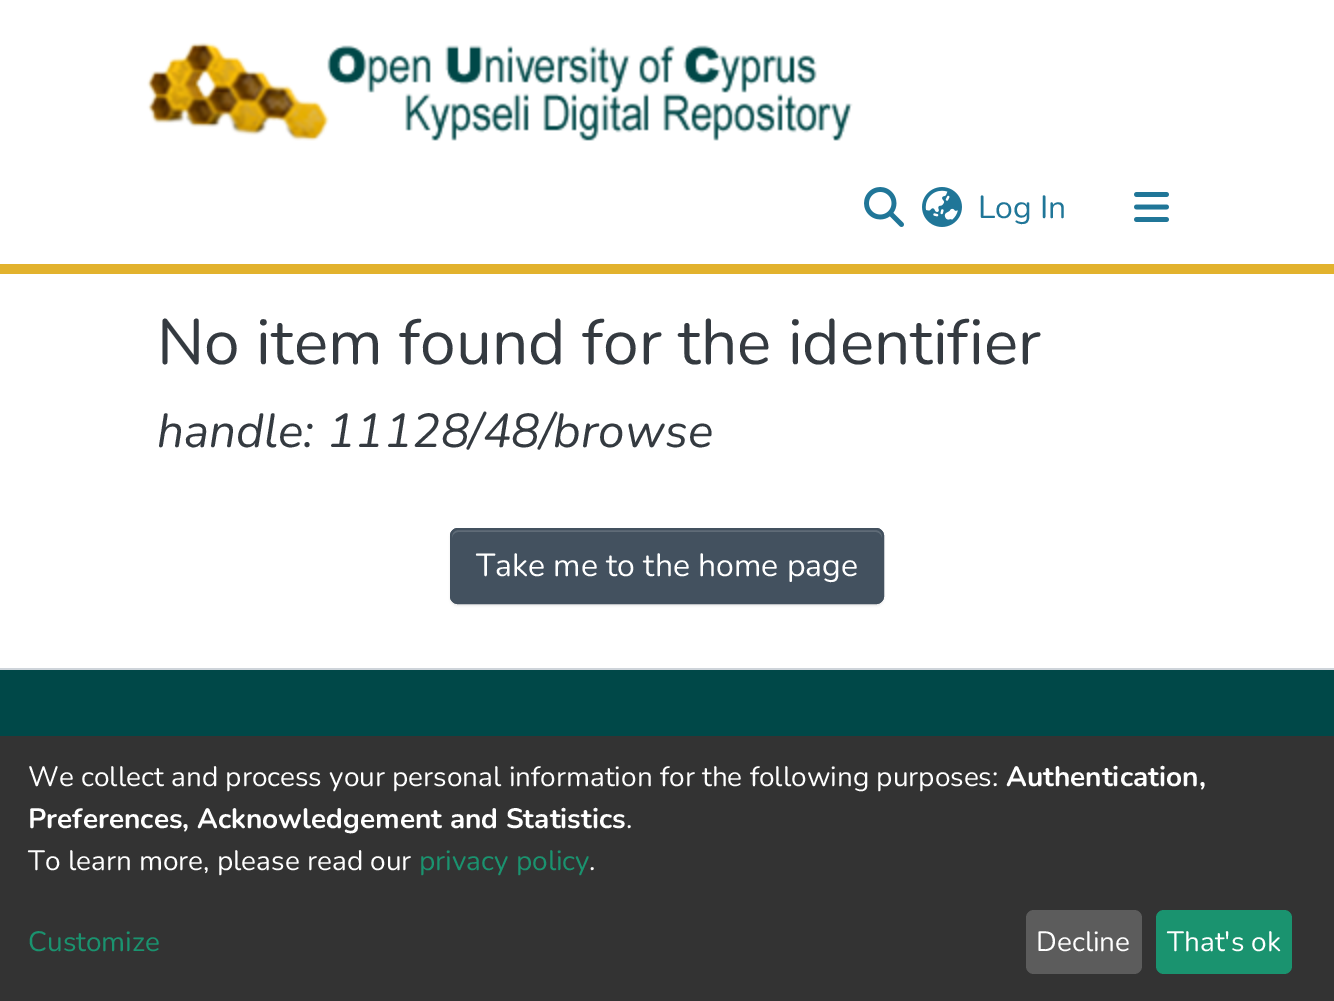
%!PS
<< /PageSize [1334 1001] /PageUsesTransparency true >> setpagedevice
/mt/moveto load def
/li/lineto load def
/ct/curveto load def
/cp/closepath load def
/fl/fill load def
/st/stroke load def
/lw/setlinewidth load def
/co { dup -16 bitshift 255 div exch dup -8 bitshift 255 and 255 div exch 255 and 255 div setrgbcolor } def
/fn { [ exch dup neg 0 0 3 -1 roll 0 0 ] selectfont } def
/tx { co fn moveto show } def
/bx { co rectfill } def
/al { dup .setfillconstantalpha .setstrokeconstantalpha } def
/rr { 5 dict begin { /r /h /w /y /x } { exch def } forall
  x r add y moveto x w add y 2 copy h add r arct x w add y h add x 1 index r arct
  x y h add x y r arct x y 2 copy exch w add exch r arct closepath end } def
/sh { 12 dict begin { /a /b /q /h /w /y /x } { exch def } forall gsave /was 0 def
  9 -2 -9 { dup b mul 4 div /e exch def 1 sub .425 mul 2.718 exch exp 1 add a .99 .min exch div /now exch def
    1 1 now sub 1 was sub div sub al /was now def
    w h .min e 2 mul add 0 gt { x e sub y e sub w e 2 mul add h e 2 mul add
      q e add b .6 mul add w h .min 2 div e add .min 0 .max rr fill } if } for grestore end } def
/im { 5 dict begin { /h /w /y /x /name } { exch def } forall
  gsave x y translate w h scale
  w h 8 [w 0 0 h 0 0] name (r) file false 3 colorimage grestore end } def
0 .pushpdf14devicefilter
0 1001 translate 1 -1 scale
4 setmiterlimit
0 0 1334 1001 16#FFFFFF bx
0 264 1334 10 16#E2B22D bx
(media/1.raw) 147 42 706 99 im
(media/2.raw) 864 187 40 40 im
(media/3.raw) 922 187 40 40 im
(media/4.raw) 1134 192 35 30 im
16#000000 co
450 530 434 76 8 1 .07 sh
16#43515F co
450 528 434 76 8 rr fl
16#5F6B77 co
458 532 mt 876 532 li 879 532 882 535 882 538 ct 882 536 li 882 533 879 530 876 530 ct 458 530 li 455 530 452 533 452 536 ct 452 538 li 452 535 455 532 458 532 ct cp fl
16#43515F co
2 lw
451 529 432 74 7 rr st
0 668 1334 2 16#CED4DA bx
0 670 1334 66 16#004848 bx
0 736 1334 265 16#333333 bx
16#5C5C5C co
1026 910 116 64 8 rr fl
16#1A936F co
1156 910 136 64 8 rr fl
(Log In) 978 218 /Nunito-Regular 32 16#207698 tx
(No item found for the identifier) 157 364 /Nunito-Regular 64 16#343A40 tx
(handle: 11128/48/browse) 157 447 /Nunito-Italic 47.6 16#343A40 tx
(Take me to the home page) 476 576 /Nunito-Regular 32 16#FFFFFF tx
(We collect and process your personal information for the following purposes:) 28 786 /Nunito-Regular 28 16#FFFFFF tx
(Authentication,) 1006 786 /Nunito-Bold 28 16#FFFFFF tx
(Preferences, Acknowledgement and Statistics) 28 828 /Nunito-Bold 28 16#FFFFFF tx
(.) 626 828 /Nunito-Regular 28 16#FFFFFF tx
(To learn more, please read our) 28 870 /Nunito-Regular 28 16#FFFFFF tx
(privacy policy) 419 870 /Nunito-Regular 28 16#1A936F tx
(.) 589 870 /Nunito-Regular 28 16#FFFFFF tx
(Customize) 28 951 /Nunito-Regular 28 16#1A936F tx
(Decline) 1036 951 /Nunito-Regular 28 16#FFFFFF tx
(That's ok) 1167 951 /Nunito-Regular 28 16#FFFFFF tx
.poppdf14devicefilter showpage
